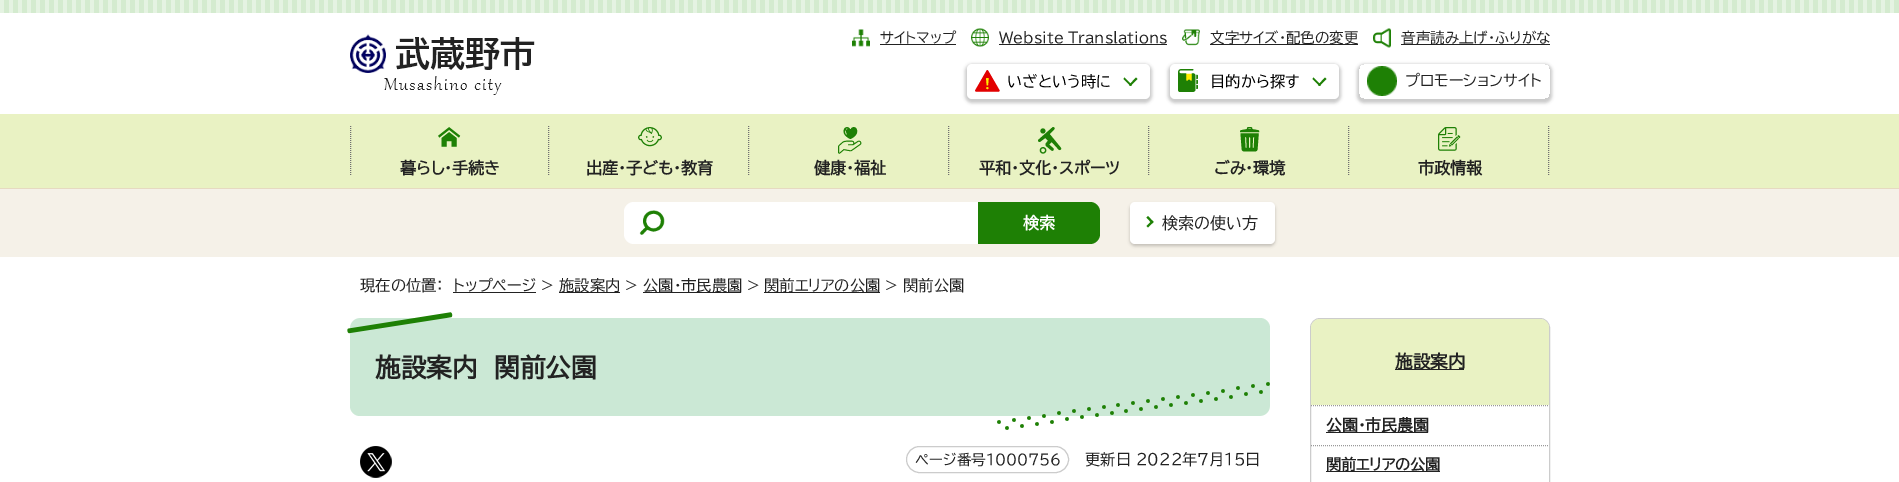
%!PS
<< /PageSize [1899 482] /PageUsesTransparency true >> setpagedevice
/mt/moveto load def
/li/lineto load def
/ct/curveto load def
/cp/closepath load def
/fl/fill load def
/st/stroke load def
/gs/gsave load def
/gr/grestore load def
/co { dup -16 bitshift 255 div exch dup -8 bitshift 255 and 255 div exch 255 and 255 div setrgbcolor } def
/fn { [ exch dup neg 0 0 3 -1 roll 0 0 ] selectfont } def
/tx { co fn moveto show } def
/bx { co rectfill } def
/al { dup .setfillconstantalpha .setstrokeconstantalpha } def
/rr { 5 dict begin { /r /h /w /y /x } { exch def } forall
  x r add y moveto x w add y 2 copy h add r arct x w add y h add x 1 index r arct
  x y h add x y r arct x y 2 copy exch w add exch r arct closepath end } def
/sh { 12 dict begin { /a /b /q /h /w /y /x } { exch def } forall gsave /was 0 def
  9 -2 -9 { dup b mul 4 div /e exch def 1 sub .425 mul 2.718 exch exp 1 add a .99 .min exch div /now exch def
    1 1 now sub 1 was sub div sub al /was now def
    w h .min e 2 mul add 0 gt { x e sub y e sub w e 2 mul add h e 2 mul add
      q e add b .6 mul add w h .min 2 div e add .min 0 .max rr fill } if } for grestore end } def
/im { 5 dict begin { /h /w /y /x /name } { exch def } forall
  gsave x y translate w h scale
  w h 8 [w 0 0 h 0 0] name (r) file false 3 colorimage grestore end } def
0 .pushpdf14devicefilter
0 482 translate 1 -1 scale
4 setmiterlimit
0 0 1899 482 16#FFFFFF bx
(media/1.raw) 0 0 1899 13 im
(media/2.raw) 350 34 185 61 im
(media/3.raw) 852 29 18 18 im
880 44 76 1 16#222222 bx
(media/4.raw) 971 28 18 19 im
999 44 168 1 16#222222 bx
(media/5.raw) 1182 29 18 17 im
1210 44 148 1 16#222222 bx
(media/6.raw) 1373 28 18 20 im
1401 44 149 1 16#222222 bx
16#000000 co
965 64 187 39 7 1.5 .2 sh
16#FFFFFF co
967 64 183 35 5 rr fl
(media/7.raw) 975 70 25 22 im
16#1E8005 co
1137.5 79 mt 1130.5 86 li 1129 85 li 1136 77.5 li cp fl
1132 85 mt 1130.5 86 li 1123.5 79 li 1124.5 77.5 li cp fl
16#000000 co
1168 64 173 39 7 1.5 .2 sh
16#FFFFFF co
1170 64 169 35 5 rr fl
(media/8.raw) 1178 69 20 23 im
16#1E8005 co
1326.5 79 mt 1319.5 86 li 1318 85 li 1325 77.5 li cp fl
1321 85 mt 1319.5 86 li 1312.5 79 li 1313.5 77.5 li cp fl
gs
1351 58 mt 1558 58 li 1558 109 li 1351 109 li cp 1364 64 mt 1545 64 li 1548 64 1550 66 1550 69 ct 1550 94 li 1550 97 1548 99 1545 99 ct 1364 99 li 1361 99 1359 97 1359 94 ct 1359 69 li 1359 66 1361 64 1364 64 ct cp eoclip newpath
16#000000 co
1357 64 195 39 7 1.5 .2 sh
gr
(media/9.raw) 1367 66 30 30 im
0 114 1899 74 16#E9F2C3 bx
0 188 1899 1 16#E6DAC1 bx
(media/10.raw) 438 127 23 20 im
16#707070 co
[1 1] 0 setdash
350.5 126 mt 350.5 176 li st
548.5 126 mt 548.5 176 li st
(media/11.raw) 638 127 24 20 im
748.5 126 mt 748.5 176 li st
(media/12.raw) 838 127 24 27 im
948.5 126 mt 948.5 176 li st
(media/13.raw) 1038 127 24 27 im
1148.5 126 mt 1148.5 176 li st
(media/14.raw) 1240 127 20 25 im
1348.5 126 mt 1348.5 176 li st
(media/15.raw) 1438 127 23 24 im
1548.5 126 mt 1548.5 176 li st
0 189 1899 68 16#F5F1E8 bx
16#FFFFFF co
634 202 mt 978 202 li 978 244 li 634 244 li 628.5 244 624 239.5 624 234 ct 624 212 li 624 206.5 628.5 202 634 202 ct cp fl
(media/16.raw) 639 210 26 25 im
16#1E8005 co
978 202 mt 1090 202 li 1095.5 202 1100 206.5 1100 212 ct 1100 234 li 1100 239.5 1095.5 244 1090 244 ct 978 244 li cp fl
16#000000 co
1130 204 145 42 5 1.5 .2 sh
16#FFFFFF co
1130 202 145 42 5 rr fl
16#1E8005 co
1148 216 mt 1153.5 222 li 1152 223.5 li 1146.5 217.5 li cp fl
1152 220.5 mt 1153.5 222 li 1148 227.5 li 1146.5 226 li cp fl
453 292 83 1 16#222222 bx
559 292 61 1 16#222222 bx
643 292 98 1 16#222222 bx
764 292 116 1 16#222222 bx
16#CBE8D5 co
350 318 920 98 10 rr fl
(media/17.raw) 347 312 106 22 im
(media/18.raw) 997 382 273 48 im
(media/19.raw) 360 446 32 32 im
16#CCCCCC co
[] 0 setdash
906.5 446.5 162 26 13 rr st
1310.5 318.5 239 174 9.5 rr st
16#E9F2C3 co
1320 319 mt 1540 319 li 1545 319 1549 323 1549 328 ct 1549 405 li 1311 405 li 1311 328 li 1311 323 1315 319 1320 319 ct cp fl
1395 369 69 1 16#222222 bx
16#999999 co
[1 1] 0 setdash
1311 405.5 mt 1549 405.5 li st
1326 432 102 1 16#222222 bx
16#999999 co
1311 445.5 mt 1549 445.5 li st
1326 471 114 1 16#222222 bx
(サイトマップ) 880 43 /BIZUDPGothic-Regular 14.5 16#222222 tx
(Website Translations) 999 43 /BIZUDPGothic-Regular 14.5 16#222222 tx
(文字サイズ・配色の変更) 1210 43 /BIZUDPGothic-Regular 14.5 16#222222 tx
(音声読み上げ・ふりがな) 1401 43 /BIZUDPGothic-Regular 14.5 16#222222 tx
(いざという時に) 1007 87 /BIZUDPGothic-Regular 15.25 16#000000 tx
(目的から探す) 1210 87 /BIZUDPGothic-Regular 15.25 16#000000 tx
(プロモーションサイト) 1405 86 /BIZUDPGothic-Regular 15.25 16#222222 tx
(暮らし・手続き) 400 174 /BIZUDPGothic-Bold 16 16#222222 tx
(出産・子ども・教育) 586 174 /BIZUDPGothic-Bold 16 16#222222 tx
(健康・福祉) 814 174 /BIZUDPGothic-Bold 16 16#222222 tx
(平和・文化・スポーツ) 979 174 /BIZUDPGothic-Bold 16 16#222222 tx
(ごみ・環境) 1214 174 /BIZUDPGothic-Bold 16 16#222222 tx
(市政情報) 1418 174 /BIZUDPGothic-Bold 16 16#222222 tx
(検索) 1023 229 /BIZUDPGothic-Bold 16 16#FFFFFF tx
(検索の使い方) 1162 229 /BIZUDPGothic-Regular 16 16#222222 tx
(現在の位置：) 360 291 /BIZUDPGothic-Regular 15.25 16#222222 tx
(トップページ >) 453 291 /BIZUDPGothic-Regular 15.25 16#222222 tx
(施設案内 >) 559 291 /BIZUDPGothic-Regular 15.25 16#222222 tx
(公園・市民農園 >) 643 291 /BIZUDPGothic-Regular 15.25 16#222222 tx
(関前エリアの公園 > 関前公園) 764 291 /BIZUDPGothic-Regular 15.25 16#222222 tx
(施設案内) 375 377 /BIZUDPGothic-Bold 25.5 16#222222 tx
(関前公園) 494 377 /BIZUDPGothic-Bold 25.5 16#222222 tx
(ページ番号1000756) 915 465 /BIZUDPGothic-Regular 14.5 16#222222 tx
(更新日 2022年7月15日) 1085 465 /BIZUDPGothic-Regular 15.25 16#222222 tx
(施設案内) 1395 368 /BIZUDPGothic-Bold 17.5 16#222222 tx
(公園・市民農園) 1326 431 /BIZUDPGothic-Bold 15.75 16#222222 tx
(関前エリアの公園) 1326 470 /BIZUDPGothic-Bold 15 16#222222 tx
.poppdf14devicefilter showpage
